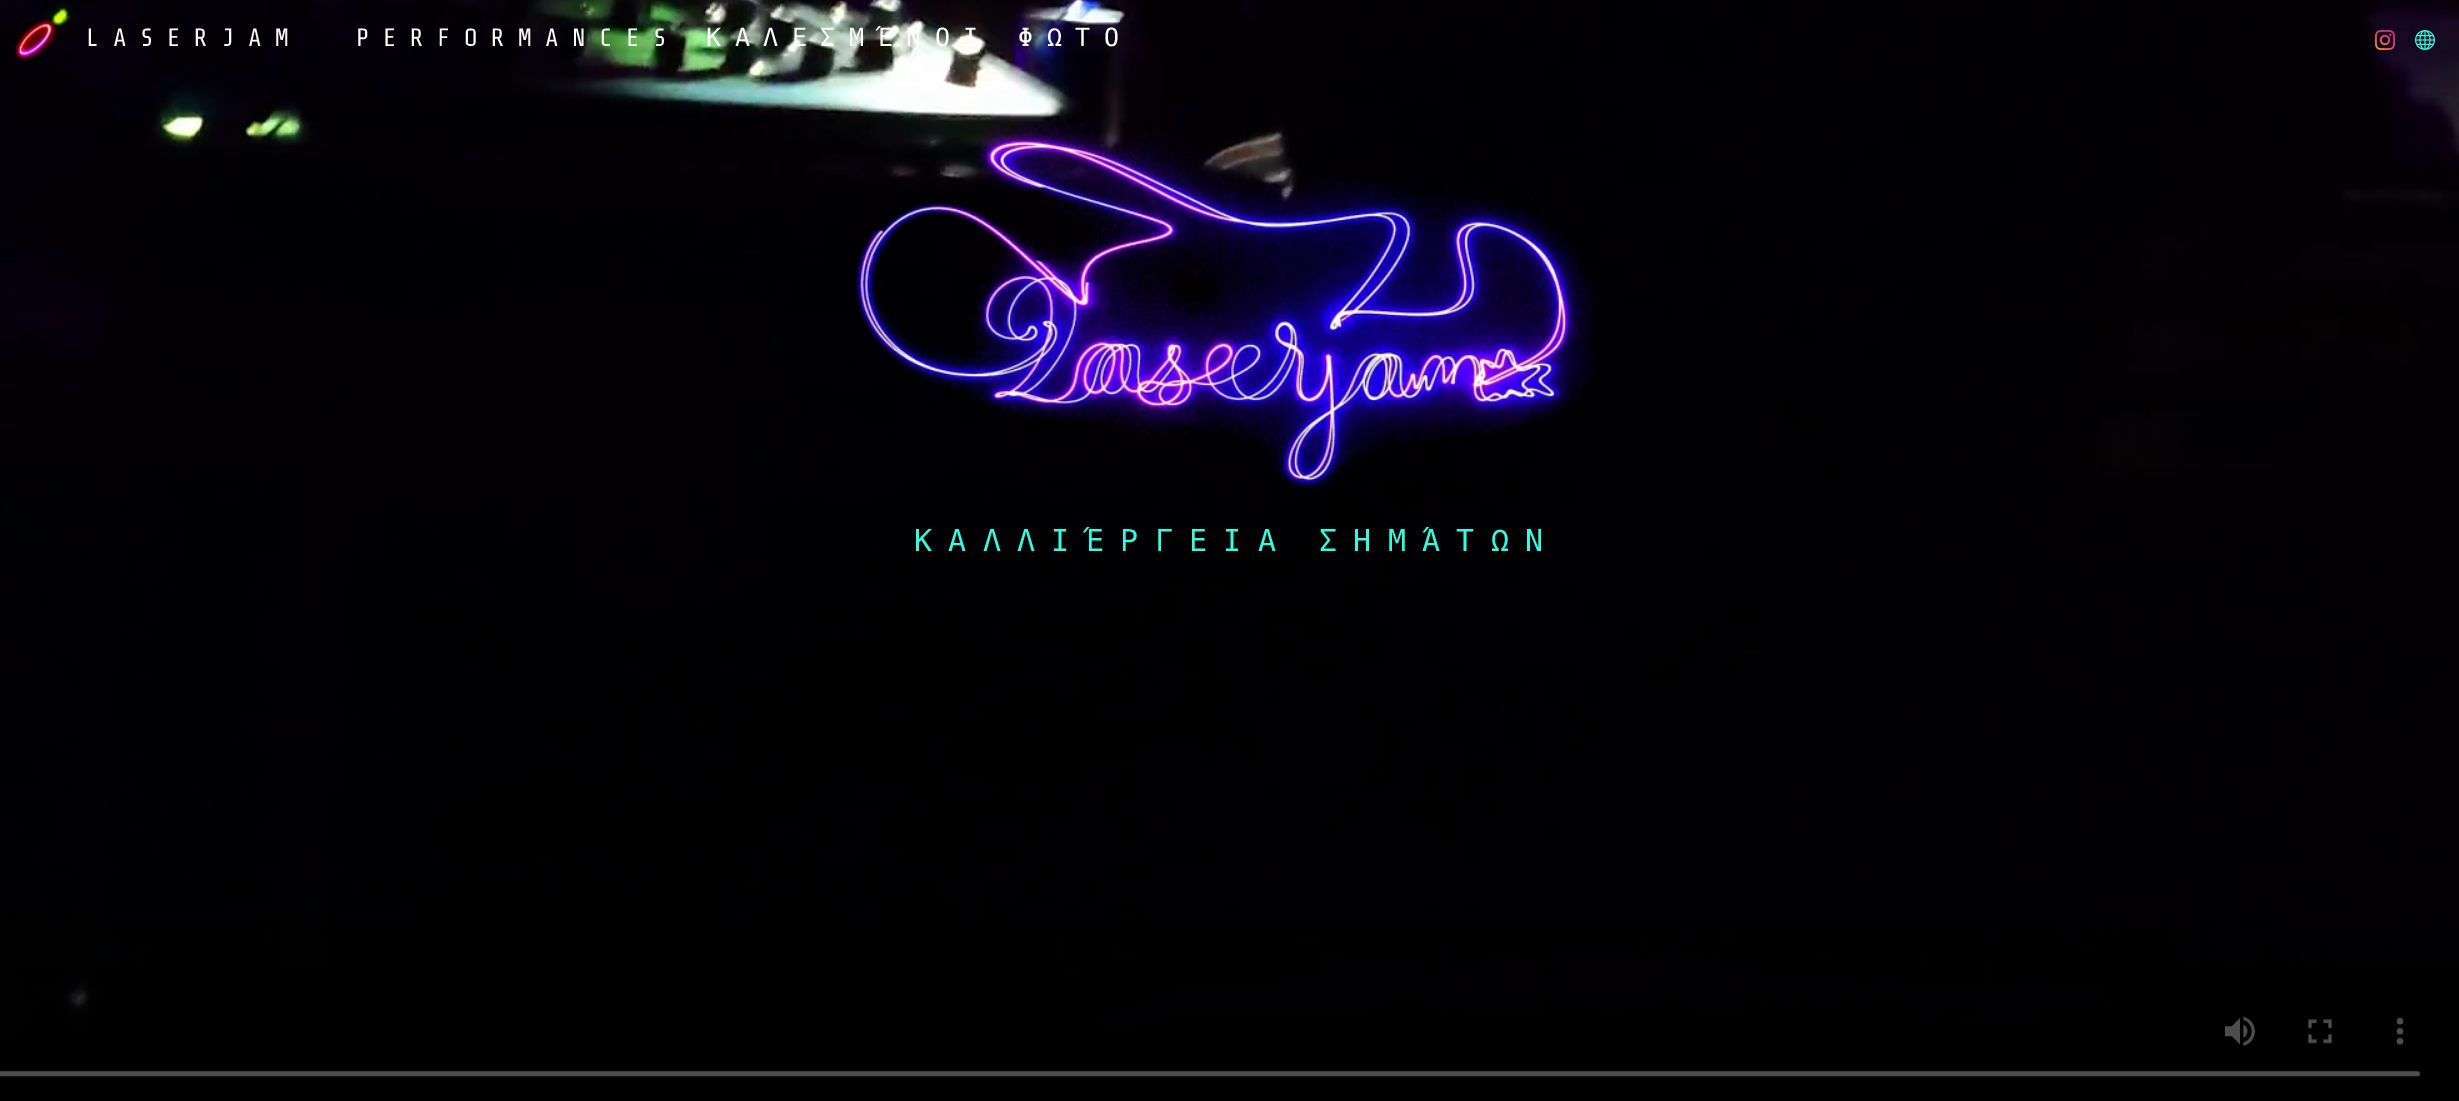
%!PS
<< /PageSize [2459 1101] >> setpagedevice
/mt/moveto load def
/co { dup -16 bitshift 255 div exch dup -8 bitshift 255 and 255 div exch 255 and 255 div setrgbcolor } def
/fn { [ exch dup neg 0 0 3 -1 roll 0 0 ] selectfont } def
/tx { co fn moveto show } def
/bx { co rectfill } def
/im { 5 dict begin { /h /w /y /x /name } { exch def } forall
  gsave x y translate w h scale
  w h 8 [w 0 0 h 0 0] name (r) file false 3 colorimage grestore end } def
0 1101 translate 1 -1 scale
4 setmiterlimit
0 0 2459 1101 16#000000 bx
(media/1.raw) 0 0 2459 1077 im
(media/2.raw) 15 19 42 41 im
(media/3.raw) 2375 30 20 20 im
(media/4.raw) 2415 30 20 20 im
(media/5.raw) 854 115 776 377 im
(L A S E R J A M) 86 46 /ShareTechMono-Regular 25 16#FFFFFF tx
(P E R F O R M A N C E S) 356 46 /ShareTechMono-Regular 25 16#FFFFFF tx
/DejaVuSansMono-Regular 25 fn
706 46 mt -1.5 0 32 (Κ Α Λ Ε Σ Μ Έ Ν Ο Ι) widthshow
1018 46 mt -1.5 0 32 (Φ Ω Τ Ο) widthshow
/DejaVuSansMono-Regular 30 fn
16#32FBE2 co
914 551 mt -1.75 0 32 (Κ Α Λ Λ Ι Έ Ρ Γ Ε Ι Α) widthshow
1319 551 mt -1.75 0 32 (Σ Η Μ Ά Τ Ω Ν) widthshow
showpage
